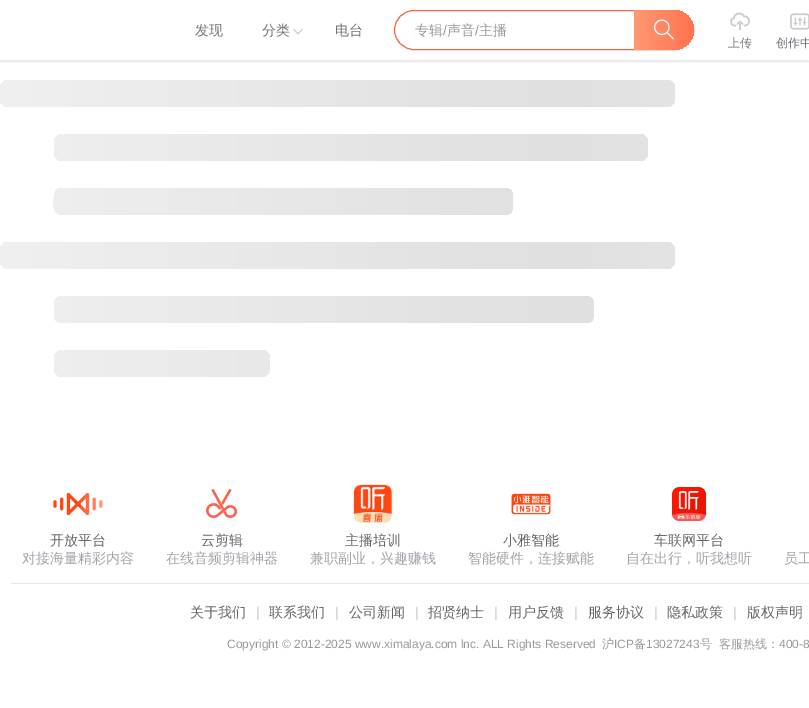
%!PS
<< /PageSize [809 708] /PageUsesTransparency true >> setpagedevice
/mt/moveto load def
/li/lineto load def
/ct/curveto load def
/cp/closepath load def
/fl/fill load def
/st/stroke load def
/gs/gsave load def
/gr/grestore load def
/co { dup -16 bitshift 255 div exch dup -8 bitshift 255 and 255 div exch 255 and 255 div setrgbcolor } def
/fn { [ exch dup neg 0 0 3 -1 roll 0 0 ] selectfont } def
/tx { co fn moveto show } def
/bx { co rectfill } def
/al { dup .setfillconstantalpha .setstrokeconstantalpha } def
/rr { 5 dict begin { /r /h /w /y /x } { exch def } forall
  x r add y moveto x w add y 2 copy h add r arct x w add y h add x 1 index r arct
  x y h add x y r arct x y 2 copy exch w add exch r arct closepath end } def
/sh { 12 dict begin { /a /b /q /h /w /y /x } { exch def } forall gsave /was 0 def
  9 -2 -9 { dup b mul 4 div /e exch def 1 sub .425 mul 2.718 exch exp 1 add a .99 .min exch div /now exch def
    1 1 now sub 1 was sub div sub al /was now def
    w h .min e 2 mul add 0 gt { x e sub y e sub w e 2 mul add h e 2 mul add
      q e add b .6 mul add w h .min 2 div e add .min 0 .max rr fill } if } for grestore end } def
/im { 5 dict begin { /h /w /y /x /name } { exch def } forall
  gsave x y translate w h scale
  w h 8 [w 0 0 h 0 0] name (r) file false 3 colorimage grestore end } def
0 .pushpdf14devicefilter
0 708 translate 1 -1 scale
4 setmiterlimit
0 0 809 708 16#FFFFFF bx
gs
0 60 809 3 rectclip
16#000000 co
0 2 809 60 0 1 .1 sh
gr
16#CCCCCC co
303 29.5 mt 298 34.5 li 297.5 33.5 li 302 29 li cp fl
298.5 33.5 mt 298 34.5 li 293 29.5 li 294 29 li cp fl
16#F86442 co
394.5 10.5 299 39 19.5 rr st
gs 634 10 mt 674 10 li 685 10 694 19 694 30 ct 694 41 685 50 674 50 ct 634 50 li cp clip newpath
<< /ShadingType 2 /ColorSpace /DeviceRGB /Coords [634 30 694 30] /Extend [true true] /Function << /FunctionType 3 /Domain [0 1] /Functions [<< /FunctionType 2 /Domain [0 1] /C0 [1 .6 .451] /C1 [1 .6 .451] /N 1 >> << /FunctionType 2 /Domain [0 1] /C0 [1 .6 .451] /C1 [1 .447 .318] /N 1 >> << /FunctionType 2 /Domain [0 1] /C0 [1 .447 .318] /C1 [1 .447 .318] /N 1 >>] /Bounds [.01 .99] /Encode [0 1 0 1 0 1] >> >> shfill gr
(media/1.raw) 654 19 20 21 im
(media/2.raw) 730 12 20 19 im
(media/3.raw) 790 13 19 17 im
gs 8 80 mt 4 80 0 84 0 88 ct 0 99 li 0 103 4 107 8 107 ct 667 107 li 671 107 675 103 675 99 ct 675 88 li 675 84 671 80 667 80 ct cp 8 242 mt 4 242 0 246 0 250 ct 0 261 li 0 265 4 269 8 269 ct 667 269 li 671 269 675 265 675 261 ct 675 250 li 675 246 671 242 667 242 ct cp 62 134 mt 58 134 54 138 54 142 ct 54 153 li 54 157 58 161 62 161 ct 640 161 li 644 161 648 157 648 153 ct 648 142 li 648 138 644 134 640 134 ct cp 62 188 mt 52 188 54 200 54 207 ct 54 211 58 215 62 215 ct 505 215 li 513 215 513 207 513 202 ct 513 196 513 188 505 188 ct cp 62 296 mt 54 296 54 304 54 310 ct 54 315 54 323 62 323 ct 586 323 li 594 323 594 315 594 310 ct 594 304 594 296 586 296 ct cp 62 350 mt 58 350 54 354 54 358 ct 54 369 li 54 373 58 377 62 377 ct 262 377 li 266 377 270 373 270 369 ct 270 358 li 270 354 266 350 262 350 ct cp eoclip newpath
<< /ShadingType 2 /ColorSpace /DeviceRGB /Coords [0 80 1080 80] /Extend [true true] /Function << /FunctionType 3 /Domain [0 1] /Functions [<< /FunctionType 2 /Domain [0 1] /C0 [.941 .941 .941] /C1 [.878 .878 .878] /N 1 >> << /FunctionType 2 /Domain [0 1] /C0 [.878 .878 .878] /C1 [.941 .941 .941] /N 1 >>] /Bounds [.5] /Encode [0 1 0 1] >> >> shfill gr
11 583 798 1 16#E8E8E8 bx
(media/4.raw) 53 492 50 24 im
(media/5.raw) 206 488 32 30 im
(media/6.raw) 353 484 40 40 im
(media/7.raw) 511 493 40 22 im
(media/8.raw) 672 487 34 34 im
(发现) 195 35 /WenQuanYiZenHei-Medium 14 16#72727B tx
(分类) 262 35 /WenQuanYiZenHei-Medium 14 16#72727B tx
(电台) 335 35 /WenQuanYiZenHei-Medium 14 16#72727B tx
(专辑) 415 35 /WenQuanYiZenHei-Medium 14 16#999999 tx
(/) 443 35 /LiberationSans-Regular 14 16#999999 tx
(声音) 447 35 /WenQuanYiZenHei-Medium 14 16#999999 tx
(/) 475 35 /LiberationSans-Regular 14 16#999999 tx
(主播) 479 35 /WenQuanYiZenHei-Medium 14 16#999999 tx
(上传) 728 47 /WenQuanYiZenHei-Medium 12 16#72727B tx
(创作中) 776 47 /WenQuanYiZenHei-Medium 12 16#72727B tx
(开放平台) 50 545 /WenQuanYiZenHei-Medium 14 16#666666 tx
(对接海量精彩内容) 22 563 /WenQuanYiZenHei-Medium 14 16#A3A3AC tx
(云剪辑) 201 545 /WenQuanYiZenHei-Medium 14 16#666666 tx
(在线音频剪辑神器) 166 563 /WenQuanYiZenHei-Medium 14 16#A3A3AC tx
(主播培训) 345 545 /WenQuanYiZenHei-Medium 14 16#666666 tx
(兼职副业，兴趣赚钱) 310 563 /WenQuanYiZenHei-Medium 14 16#A3A3AC tx
(小雅智能) 503 545 /WenQuanYiZenHei-Medium 14 16#666666 tx
(智能硬件，连接赋能) 468 563 /WenQuanYiZenHei-Medium 14 16#A3A3AC tx
(车联网平台) 654 545 /WenQuanYiZenHei-Medium 14 16#666666 tx
(自在出行，听我想听) 626 563 /WenQuanYiZenHei-Medium 14 16#A3A3AC tx
(员工) 784 563 /WenQuanYiZenHei-Medium 14 16#A3A3AC tx
(关于我们) 190 617 /WenQuanYiZenHei-Medium 14 16#666666 tx
(|) 256 617 /LiberationSans-Regular 14 16#CCCCCC tx
(联系我们) 269 617 /WenQuanYiZenHei-Medium 14 16#666666 tx
(|) 335 617 /LiberationSans-Regular 14 16#CCCCCC tx
(公司新闻) 349 617 /WenQuanYiZenHei-Medium 14 16#666666 tx
(|) 415 617 /LiberationSans-Regular 14 16#CCCCCC tx
(招贤纳士) 428 617 /WenQuanYiZenHei-Medium 14 16#666666 tx
(|) 494 617 /LiberationSans-Regular 14 16#CCCCCC tx
(用户反馈) 508 617 /WenQuanYiZenHei-Medium 14 16#666666 tx
(|) 574 617 /LiberationSans-Regular 14 16#CCCCCC tx
(服务协议) 588 617 /WenQuanYiZenHei-Medium 14 16#666666 tx
(|) 654 617 /LiberationSans-Regular 14 16#CCCCCC tx
(隐私政策) 667 617 /WenQuanYiZenHei-Medium 14 16#666666 tx
(|) 733 617 /LiberationSans-Regular 14 16#CCCCCC tx
(版权声明) 747 617 /WenQuanYiZenHei-Medium 14 16#666666 tx
(Copyright © 2012-2025 www.ximalaya.com lnc. ALL Rights Reserved) 227 648 /LiberationSans-Regular 12 16#999999 tx
(沪) 602 648 /WenQuanYiZenHei-Medium 12 16#999999 tx
(ICP) 614 648 /LiberationSans-Regular 12 16#999999 tx
(备) 634 648 /WenQuanYiZenHei-Medium 12 16#999999 tx
(13027243) 646 648 /LiberationSans-Regular 12 16#999999 tx
(号) 700 648 /WenQuanYiZenHei-Medium 12 16#999999 tx
(客服热线：) 719 648 /WenQuanYiZenHei-Medium 12 16#999999 tx
(400-8) 779 648 /LiberationSans-Regular 12 16#999999 tx
.poppdf14devicefilter showpage
